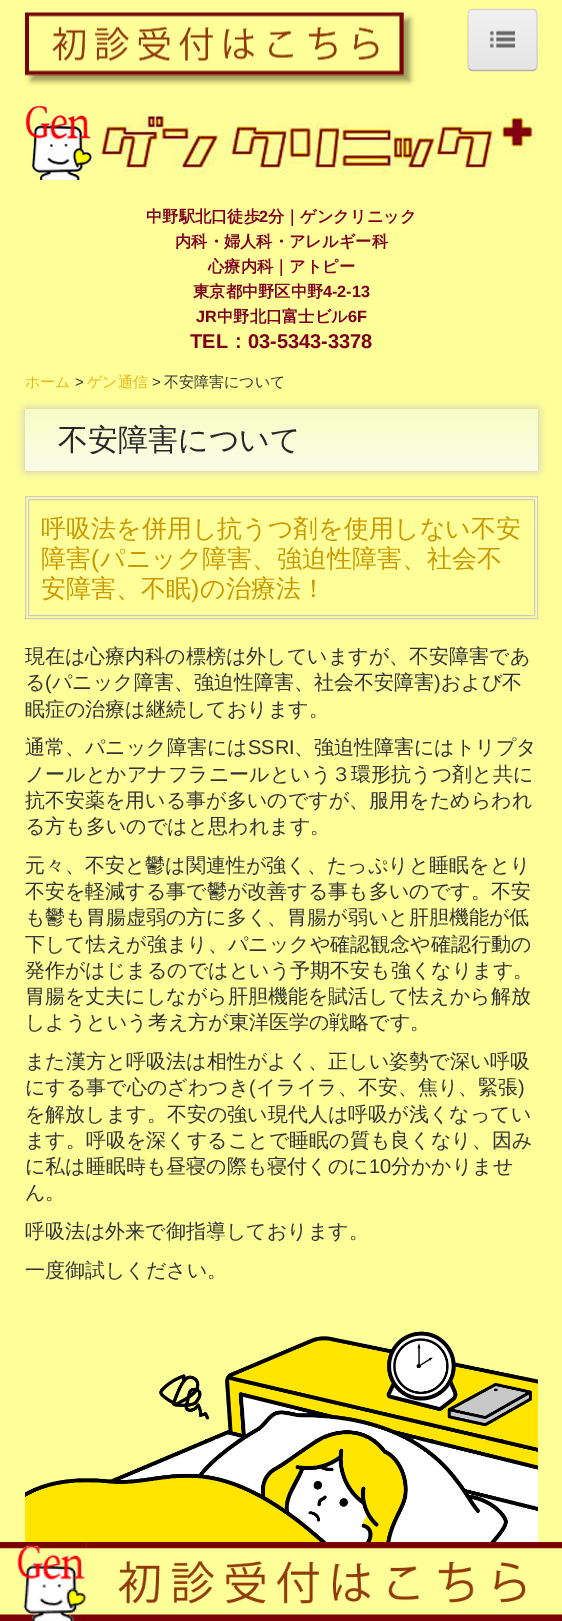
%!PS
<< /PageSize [562 1621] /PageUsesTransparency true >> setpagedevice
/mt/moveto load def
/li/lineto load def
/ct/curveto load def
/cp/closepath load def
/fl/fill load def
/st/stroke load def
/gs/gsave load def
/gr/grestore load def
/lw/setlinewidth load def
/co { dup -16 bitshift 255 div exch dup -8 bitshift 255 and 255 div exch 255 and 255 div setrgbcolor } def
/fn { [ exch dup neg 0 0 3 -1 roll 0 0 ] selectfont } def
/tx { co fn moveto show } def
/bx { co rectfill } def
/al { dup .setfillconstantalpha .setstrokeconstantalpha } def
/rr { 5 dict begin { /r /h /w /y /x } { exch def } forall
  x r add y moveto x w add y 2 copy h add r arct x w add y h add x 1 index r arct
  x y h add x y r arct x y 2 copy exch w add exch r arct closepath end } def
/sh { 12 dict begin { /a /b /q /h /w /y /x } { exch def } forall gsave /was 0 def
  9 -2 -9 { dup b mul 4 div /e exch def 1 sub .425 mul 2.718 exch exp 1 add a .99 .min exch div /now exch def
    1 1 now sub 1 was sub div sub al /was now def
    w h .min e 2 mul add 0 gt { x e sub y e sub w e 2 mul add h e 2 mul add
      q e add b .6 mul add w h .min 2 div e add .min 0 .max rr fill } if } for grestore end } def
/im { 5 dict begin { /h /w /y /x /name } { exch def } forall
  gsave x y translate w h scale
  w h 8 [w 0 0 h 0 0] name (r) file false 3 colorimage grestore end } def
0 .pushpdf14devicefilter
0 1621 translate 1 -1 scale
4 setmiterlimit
0 0 562 1621 16#FFFF99 bx
16#FFFFA1 co
468 68 mt 468 71 470 73 473 73 ct 533 73 li 536 73 538 71 538 68 ct 538 15 li 537 13 li 538 66 li 538 69 535 71 532 71 ct 472 71 li 471 71 469 70 468 68 ct cp fl
16#EDEDED co
468 9 70 62 5 rr fl
gs
468 9 70 62 5 rr clip newpath
gs 468 10 mt 538 10 li 538 70 li 468 70 li cp clip newpath
<< /ShadingType 2 /ColorSpace /DeviceRGB /Coords [503 10 503 70] /Extend [true true] /Function << /FunctionType 2 /Domain [0 1] /C0 [.949 .949 .949] /C1 [.898 .898 .898] /N 1 >> >> shfill gr
gr
0.25 al
16#000000 co
1.2 lw
535.5 69.5 mt 533 70.5 li 472 70.5 li 469.5 69.5 li st
0.1 al
469.5 69.5 mt 466.5 66.5 468 59.5 468 57.5 ct 468 22.5 li 468 7.5 467.5 9.5 482.5 9.5 ct 522.5 9.5 li 537.5 9.5 537 7.5 537 22.5 ct 537 57.5 li 537 59.5 538.5 66.5 535.5 69.5 ct st
1 al
(media/1.raw) 490 30 25 18 im
31 19 379 62 0 3 .4 sh
(media/2.raw) 25 12 379 64 im
(media/3.raw) 25 105 511 75 im
16#C3C3C3 co
25 409 513 62 1 5 1 sh
gs 25 409 513 62 1 rr clip newpath
<< /ShadingType 2 /ColorSpace /DeviceRGB /Coords [281 409 281 471] /Extend [true true] /Function << /FunctionType 2 /Domain [0 1] /C0 [.969 .992 .773] /C1 [.984 .992 .914] /N 1 >> >> shfill gr
16#CCCCCC co
1 lw
25.5 496.5 512 122 rectstroke
28.5 499.5 506 116 rectstroke
(media/4.raw) 25 1331 513 211 im
(media/5.raw) 0 1542 562 79 im
(中野駅北口徒歩) 146 222 /WenQuanYiZenHei-Bold 16.25 16#7F001E tx
(2) 259 222 /LiberationSans-Bold 16.25 16#7F001E tx
(分｜ゲンクリニック) 268 222 /WenQuanYiZenHei-Bold 16.25 16#7F001E tx
(内科・婦人科・アレルギー科) 175 247 /WenQuanYiZenHei-Bold 16.25 16#7F001E tx
(心療内科｜アトピー) 208 272 /WenQuanYiZenHei-Bold 16.25 16#7F001E tx
(東京都中野区中野) 193 297 /WenQuanYiZenHei-Bold 16.25 16#7F001E tx
(4-2-13) 323 297 /LiberationSans-Bold 16.25 16#7F001E tx
(JR) 196 322 /LiberationSans-Bold 16.25 16#7F001E tx
(中野北口富士ビル) 217 322 /WenQuanYiZenHei-Bold 16.25 16#7F001E tx
(6F) 348 322 /LiberationSans-Bold 16.25 16#7F001E tx
(TEL) 190 348 /LiberationSans-Bold 20 16#7F001E tx
(：) 228 348 /WenQuanYiZenHei-Bold 20 16#7F001E tx
(03-5343-3378) 248 348 /LiberationSans-Bold 20 16#7F001E tx
(ホーム) 25 387 /WenQuanYiZenHei-Medium 15 16#EBB413 tx
(>) 75 387 /LiberationSans-Regular 15 16#333333 tx
(ゲン通信) 87 387 /WenQuanYiZenHei-Medium 15 16#EBB413 tx
(>) 152 387 /LiberationSans-Regular 15 16#333333 tx
(不安障害について) 164 387 /WenQuanYiZenHei-Medium 15 16#333333 tx
(不安障害について) 58 450 /WenQuanYiZenHei-Medium 30 16#282828 tx
(呼吸法を併用し抗うつ剤を使用しない不安) 41 537 /WenQuanYiZenHei-Medium 25 16#CA9700 tx
(障害) 41 567 /WenQuanYiZenHei-Medium 25 16#CA9700 tx
(\() 91 567 /LiberationSans-Regular 25 16#CA9700 tx
(パニック障害、強迫性障害、社会不) 100 567 /WenQuanYiZenHei-Medium 25 16#CA9700 tx
(安障害、不眠) 41 597 /WenQuanYiZenHei-Medium 25 16#CA9700 tx
(\)) 191 597 /LiberationSans-Regular 25 16#CA9700 tx
(の治療法！) 200 597 /WenQuanYiZenHei-Medium 25 16#CA9700 tx
(現在は心療内科の標榜は外していますが、不安障害であ) 25 663 /WenQuanYiZenHei-Medium 20 16#333333 tx
(る) 25 689 /WenQuanYiZenHei-Medium 20 16#333333 tx
(\() 45 689 /LiberationSans-Regular 20 16#333333 tx
(パニック障害、強迫性障害、社会不安障害) 52 689 /WenQuanYiZenHei-Medium 20 16#333333 tx
(\)) 434 689 /LiberationSans-Regular 20 16#333333 tx
(および不) 441 689 /WenQuanYiZenHei-Medium 20 16#333333 tx
(眠症の治療は継続しております。) 25 716 /WenQuanYiZenHei-Medium 20 16#333333 tx
(通常、パニック障害には) 25 754 /WenQuanYiZenHei-Medium 20 16#333333 tx
(SSRI) 248 754 /LiberationSans-Regular 20 16#333333 tx
(、強迫性障害にはトリプタ) 294 754 /WenQuanYiZenHei-Medium 20 16#333333 tx
(ノールとかアナフラニールという３環形抗うつ剤と共に) 25 781 /WenQuanYiZenHei-Medium 20 16#333333 tx
(抗不安薬を用いる事が多いのですが、服用をためらわれ) 25 807 /WenQuanYiZenHei-Medium 20 16#333333 tx
(る方も多いのではと思われます。) 25 833 /WenQuanYiZenHei-Medium 20 16#333333 tx
(元々、不安と鬱は関連性が強く、たっぷりと睡眠をとり) 25 872 /WenQuanYiZenHei-Medium 20 16#333333 tx
(不安を軽減する事で鬱が改善する事も多いのです。不安) 25 898 /WenQuanYiZenHei-Medium 20 16#333333 tx
(も鬱も胃腸虚弱の方に多く、胃腸が弱いと肝胆機能が低) 25 924 /WenQuanYiZenHei-Medium 20 16#333333 tx
(下して怯えが強まり、パニックや確認観念や確認行動の) 25 951 /WenQuanYiZenHei-Medium 20 16#333333 tx
(発作がはじまるのではという予期不安も強くなります。) 25 977 /WenQuanYiZenHei-Medium 20 16#333333 tx
(胃腸を丈夫にしながら肝胆機能を賦活して怯えから解放) 25 1003 /WenQuanYiZenHei-Medium 20 16#333333 tx
(しようという考え方が東洋医学の戦略です。) 25 1029 /WenQuanYiZenHei-Medium 20 16#333333 tx
(また漢方と呼吸法は相性がよく、正しい姿勢で深い呼吸) 25 1068 /WenQuanYiZenHei-Medium 20 16#333333 tx
(にする事で心のざわつき) 25 1094 /WenQuanYiZenHei-Medium 20 16#333333 tx
(\() 249 1094 /LiberationSans-Regular 20 16#333333 tx
(イライラ、不安、焦り、緊張) 256 1094 /WenQuanYiZenHei-Medium 20 16#333333 tx
(\)) 518 1094 /LiberationSans-Regular 20 16#333333 tx
(を解放します。不安の強い現代人は呼吸が浅くなってい) 25 1121 /WenQuanYiZenHei-Medium 20 16#333333 tx
(ます。呼吸を深くすることで睡眠の質も良くなり、因み) 25 1147 /WenQuanYiZenHei-Medium 20 16#333333 tx
(に私は睡眠時も昼寝の際も寝付くのに) 25 1173 /WenQuanYiZenHei-Medium 20 16#333333 tx
(10) 369 1173 /LiberationSans-Regular 20 16#333333 tx
(分かかりませ) 391 1173 /WenQuanYiZenHei-Medium 20 16#333333 tx
(ん。) 25 1199 /WenQuanYiZenHei-Medium 20 16#333333 tx
(呼吸法は外来で御指導しております。) 25 1238 /WenQuanYiZenHei-Medium 20 16#333333 tx
(一度御試しください。) 25 1277 /WenQuanYiZenHei-Medium 20 16#333333 tx
.poppdf14devicefilter showpage
